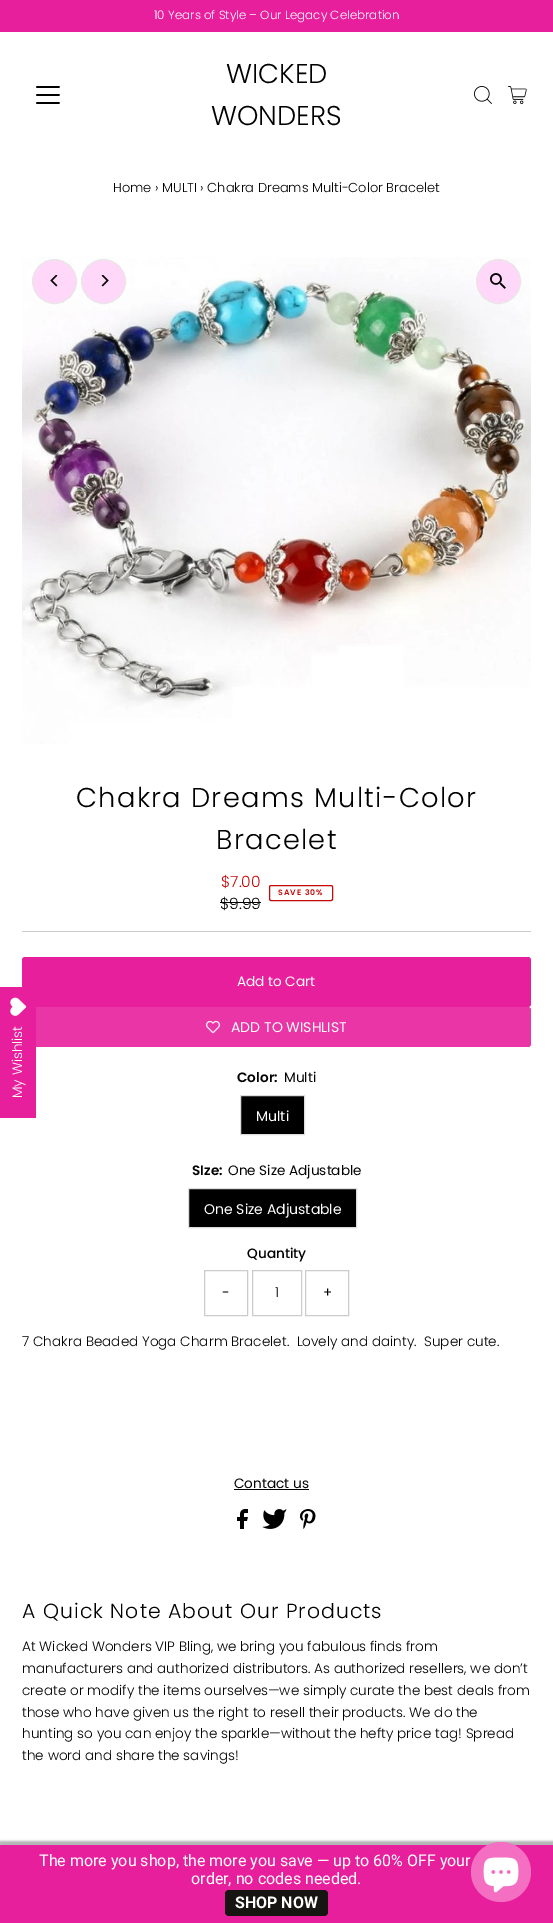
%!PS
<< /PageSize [553 1923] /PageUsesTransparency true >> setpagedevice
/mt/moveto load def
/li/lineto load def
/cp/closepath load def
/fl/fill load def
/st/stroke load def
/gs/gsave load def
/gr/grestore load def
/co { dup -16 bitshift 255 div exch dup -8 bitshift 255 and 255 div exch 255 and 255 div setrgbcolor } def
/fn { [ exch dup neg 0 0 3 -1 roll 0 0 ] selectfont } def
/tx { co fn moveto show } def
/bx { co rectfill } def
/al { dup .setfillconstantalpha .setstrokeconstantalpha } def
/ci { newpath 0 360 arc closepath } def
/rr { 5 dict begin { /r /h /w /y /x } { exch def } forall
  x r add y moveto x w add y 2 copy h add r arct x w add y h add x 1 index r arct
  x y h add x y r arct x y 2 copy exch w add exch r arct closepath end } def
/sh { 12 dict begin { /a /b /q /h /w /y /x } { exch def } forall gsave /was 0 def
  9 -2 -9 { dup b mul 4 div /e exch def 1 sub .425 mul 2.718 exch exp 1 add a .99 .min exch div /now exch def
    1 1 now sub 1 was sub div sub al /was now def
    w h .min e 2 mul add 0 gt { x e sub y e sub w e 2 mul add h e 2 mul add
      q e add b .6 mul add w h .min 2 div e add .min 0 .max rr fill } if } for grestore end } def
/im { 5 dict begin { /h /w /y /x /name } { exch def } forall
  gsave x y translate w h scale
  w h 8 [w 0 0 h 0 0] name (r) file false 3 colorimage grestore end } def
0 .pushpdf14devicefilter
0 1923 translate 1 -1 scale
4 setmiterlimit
0 0 553 1923 16#FFFFFF bx
16#E81F9C co
22 957 509 50 3 rr fl
16#EA35A6 co
22 1007 509 40 3 rr fl
0 987 36 131 16#E81F9C bx
(media/1.raw) 10 997 17 19 im
0 0 553 32 16#E81F9C bx
(media/2.raw) 36 86 24 18 im
(media/3.raw) 474 86 18 18 im
(media/4.raw) 508 86 19 18 im
(media/5.raw) 22 257 509 487 im
16#FFD7F9 co
498.5 281.5 22 ci gs fl gr
16#E7E7E7 co
st
(media/6.raw) 490 273 16 16 im
16#FFD7F9 co
54.5 281.5 22 ci gs fl gr
16#E7E7E7 co
st
(media/7.raw) 50 275 8 12 im
16#FFD7F9 co
103.5 281.5 22 ci gs fl gr
16#E7E7E7 co
st
(media/8.raw) 101 275 8 12 im
22 931 509 1 16#CCCCCC bx
220 902 41 1 16#000000 bx
16#C60808 co
269.5 885.5 63 15 1.5 rr st
(media/9.raw) 206 1020 14 14 im
16#000000 co
240.5 1095.5 mt 304.5 1095.5 li 304.5 1134.5 li 240.5 1134.5 li cp gs fl gr
16#DDDDDD co
st
16#000000 co
188.5 1188.5 mt 356.5 1188.5 li 356.5 1227.5 li 188.5 1227.5 li cp gs fl gr
16#DDDDDD co
st
16#CCCCCC co
204.5 1270.5 43 45 rectstroke
252.5 1270.5 49 45 rectstroke
305.5 1270.5 43 45 rectstroke
234 1489 75 1 16#000000 bx
(media/10.raw) 237 1509 11 20 im
(media/11.raw) 262 1509 25 20 im
(media/12.raw) 300 1509 16 20 im
-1 1841 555 80 0 1 .3 sh
0 1845 553 78 16#E81F9C bx
16#171512 co
225 1890 103 26 4 rr fl
16#F46EC1 co
501 1872 30 ci fl
(media/13.raw) 483 1857 36 36 im
/Poppins-Light 13.6 fn
16#FFFFFF co
gs 22 1098 translate -90 rotate 0 0 mt (My Wishlist) show gr
(10 Years of Style – Our Legacy Celebration) 154 19 /Poppins-Light 11.9 16#FFFFFF tx
(WICKED) 226 83 /Poppins-Light 27.25 16#000000 tx
(WONDERS) 211 125 /Poppins-Light 27.25 16#000000 tx
(Home › MULTI › Chakra Dreams Multi-Color Bracelet) 113 192 /Poppins-Light 13 16#000000 tx
/Poppins-Light 27.25 fn
76 807 mt 1.35 0 (Chakra Dreams Multi-Color) ashow
216 849 mt 1.35 0 (Bracelet) ashow
($7.00) 221 887 /Poppins-Light 15.5 16#C60808 tx
($9.99) 220 909 /Poppins-Light 15.5 16#000000 tx
/Poppins-SemiBold 7.75 fn
16#C60808 co
278 895 mt 1 0 (SAVE 30%) ashow
(Add to Cart) 237 986 /Poppins-Regular 13.6 16#FFFFFF tx
(ADD TO WISHLIST) 231 1032 /Poppins-Regular 14 16#FFFFFF tx
(Color:) 237 1082 /Poppins-SemiBold 13.6 16#000000 tx
(Multi) 284 1082 /Poppins-Regular 13.6 16#000000 tx
(Multi) 256 1121 /Poppins-Regular 14 16#FFFFFF tx
(SIze:) 192 1175 /Poppins-SemiBold 13.6 16#000000 tx
(One Size Adjustable) 228 1175 /Poppins-Regular 13.6 16#000000 tx
(One Size Adjustable) 204 1214 /Poppins-Regular 14 16#FFFFFF tx
(Quantity) 247 1258 /Poppins-Medium 13.6 16#000000 tx
(-) 222 1297 /Poppins-Regular 13.6 16#000000 tx
(1) 275 1297 /Poppins-Light 13.6 16#000000 tx
(+) 323 1297 /Poppins-Regular 13.6 16#000000 tx
(7 Chakra Beaded Yoga Charm Bracelet.  Lovely and dainty.  Super cute.) 22 1346 /Poppins-Light 13.6 16#000000 tx
(Contact us) 234 1488 /Poppins-Regular 13.6 16#000000 tx
/Poppins-Light 20.4 fn
22 1618 mt 1 0 (A Quick Note About Our Products) ashow
(At Wicked Wonders VIP Bling, we bring you fabulous finds from) 22 1651 /Poppins-Light 13.6 16#000000 tx
(manufacturers and authorized distributors. As authorized resellers, we don’t) 22 1673 /Poppins-Light 13.6 16#000000 tx
(create or modify the items ourselves—we simply curate the best deals from) 22 1695 /Poppins-Light 13.6 16#000000 tx
(those who have given us the right to resell their products. We do the) 22 1717 /Poppins-Light 13.6 16#000000 tx
(hunting so you can enjoy the sparkle—without the hefty price tag! Spread) 22 1738 /Poppins-Light 13.6 16#000000 tx
(the word and share the savings!) 22 1760 /Poppins-Light 13.6 16#000000 tx
(The more you shop, the more you save — up to 60% OFF your) 39 1866 /Roboto-Regular 16 16#FFFFFF tx
(order, no codes needed.) 191 1884 /Roboto-Regular 16 16#FFFFFF tx
(SHOP NOW) 235 1908 /Roboto-Bold 16 16#FFFFFF tx
.poppdf14devicefilter showpage
